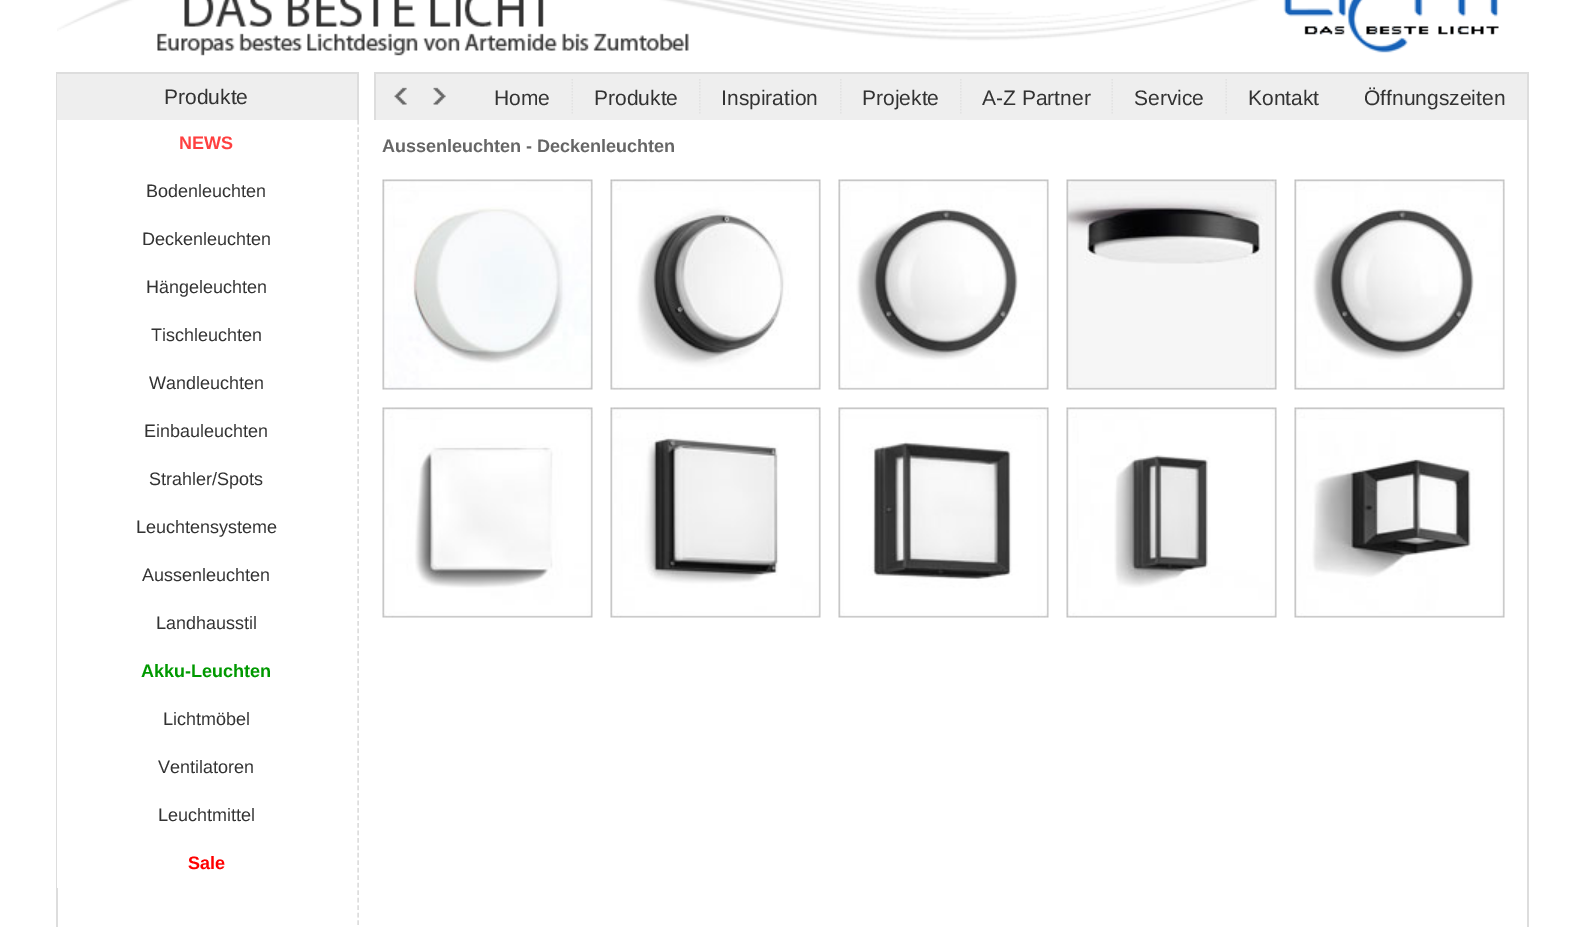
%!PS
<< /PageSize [1582 927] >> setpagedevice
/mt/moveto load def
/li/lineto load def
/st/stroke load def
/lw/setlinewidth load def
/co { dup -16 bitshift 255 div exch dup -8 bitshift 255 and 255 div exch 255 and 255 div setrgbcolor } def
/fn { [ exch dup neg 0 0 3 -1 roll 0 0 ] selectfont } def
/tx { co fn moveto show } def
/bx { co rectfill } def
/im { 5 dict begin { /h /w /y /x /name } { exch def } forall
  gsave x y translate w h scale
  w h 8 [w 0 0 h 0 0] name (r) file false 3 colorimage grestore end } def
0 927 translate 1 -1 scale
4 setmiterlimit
0 0 1582 927 16#FFFFFF bx
(media/1.raw) 57 0 1442 56 im
1527 72 2 855 16#DDDDDD bx
56 72 2 855 16#DDDDDD bx
57 74 300 46 16#EEEEEE bx
57 72 302 2 16#DDDDDD bx
357 72 2 48 16#DDDDDD bx
376 74 1151 46 16#EEEEEE bx
374 72 1153 2 16#DDDDDD bx
374 72 2 48 16#DDDDDD bx
(media/2.raw) 394 87 13 18 im
(media/3.raw) 433 87 13 18 im
(media/4.raw) 571 79 2 35 im
(media/5.raw) 699 79 2 35 im
(media/5.raw) 840 79 2 35 im
(media/5.raw) 960 79 2 35 im
(media/6.raw) 1111 79 2 35 im
(media/6.raw) 1225 79 2 35 im
1.5 lw
[4.5 2.98] 0 setdash
358 120 mt 358 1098 li st
57 120 1 768 16#FFFFFF bx
(media/7.raw) 382 179 211 211 im
(media/8.raw) 610 179 211 211 im
(media/9.raw) 838 179 211 211 im
(media/10.raw) 1066 179 211 211 im
(media/11.raw) 1294 179 211 211 im
(media/12.raw) 382 407 211 211 im
(media/13.raw) 610 407 211 211 im
(media/14.raw) 838 407 211 211 im
(media/15.raw) 1066 407 211 211 im
(media/16.raw) 1294 407 211 211 im
(Produkte) 164 104 /LiberationSans-Regular 21 16#333333 tx
(Home) 494 105 /LiberationSans-Regular 21 16#333333 tx
(Produkte) 594 105 /LiberationSans-Regular 21 16#333333 tx
(Inspiration) 721 105 /LiberationSans-Regular 21 16#333333 tx
(Projekte) 862 105 /LiberationSans-Regular 21 16#333333 tx
(A-Z Partner) 982 105 /LiberationSans-Regular 21 16#333333 tx
(Service) 1134 105 /LiberationSans-Regular 21 16#333333 tx
(Kontakt) 1248 105 /LiberationSans-Regular 21 16#333333 tx
(Öffnungszeiten) 1364 105 /LiberationSans-Regular 21 16#333333 tx
(NEWS) 179 149 /LiberationSans-Bold 18 16#FF4040 tx
(Bodenleuchten) 146 197 /LiberationSans-Regular 18 16#333333 tx
(Deckenleuchten) 142 245 /LiberationSans-Regular 18 16#333333 tx
(Hängeleuchten) 146 293 /LiberationSans-Regular 18 16#333333 tx
(Tischleuchten) 151 341 /LiberationSans-Regular 18 16#333333 tx
(Wandleuchten) 149 389 /LiberationSans-Regular 18 16#333333 tx
(Einbauleuchten) 144 437 /LiberationSans-Regular 18 16#333333 tx
(Strahler/Spots) 149 485 /LiberationSans-Regular 18 16#333333 tx
(Leuchtensysteme) 136 533 /LiberationSans-Regular 18 16#333333 tx
(Aussenleuchten) 142 581 /LiberationSans-Regular 18 16#333333 tx
(Landhausstil) 156 629 /LiberationSans-Regular 18 16#333333 tx
(Akku-Leuchten) 141 677 /LiberationSans-Bold 18 16#009900 tx
(Lichtmöbel) 163 725 /LiberationSans-Regular 18 16#333333 tx
(Ventilatoren) 158 773 /LiberationSans-Regular 18 16#333333 tx
(Leuchtmittel) 158 821 /LiberationSans-Regular 18 16#333333 tx
(Sale) 188 869 /LiberationSans-Bold 18 16#FF0000 tx
(Aussenleuchten - Deckenleuchten) 382 152 /LiberationSans-Bold 18 16#666666 tx
showpage
